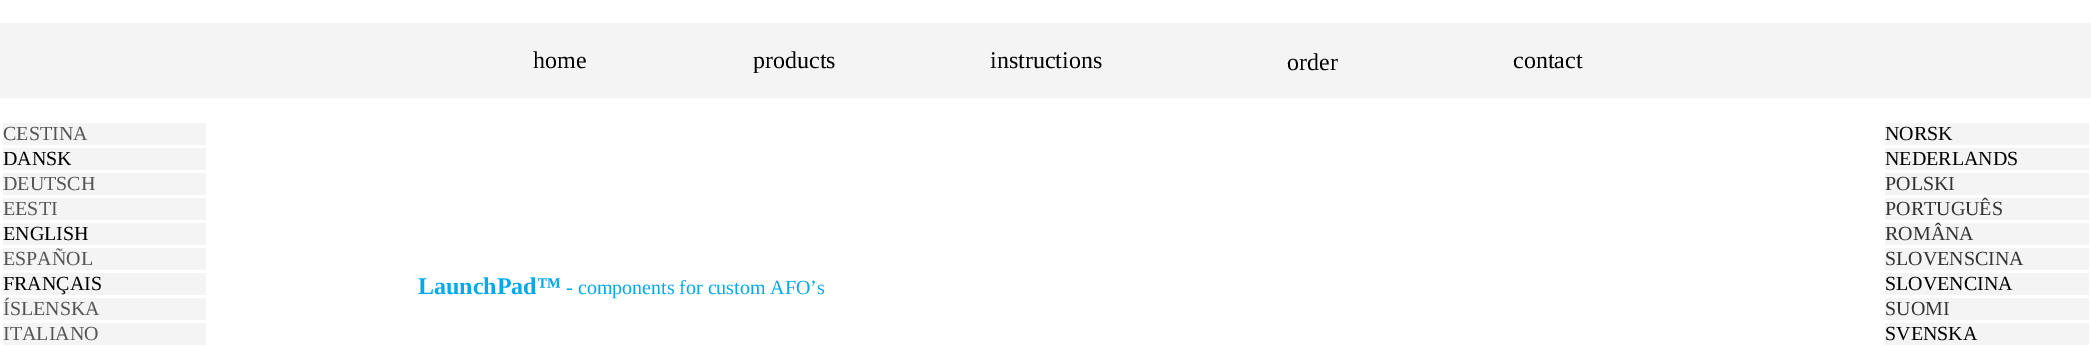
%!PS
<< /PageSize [2091 347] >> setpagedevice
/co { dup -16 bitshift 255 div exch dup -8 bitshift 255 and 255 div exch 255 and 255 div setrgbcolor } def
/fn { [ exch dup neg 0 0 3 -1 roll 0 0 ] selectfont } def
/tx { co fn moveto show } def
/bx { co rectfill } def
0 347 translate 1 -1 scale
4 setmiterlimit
0 0 2091 347 16#FFFFFF bx
0 23 2091 75 16#F4F4F4 bx
3 123 203 22 16#F4F4F4 bx
3 148 203 22 16#F4F4F4 bx
3 173 203 22 16#F4F4F4 bx
3 198 203 22 16#F4F4F4 bx
3 223 203 22 16#F4F4F4 bx
3 248 203 22 16#F4F4F4 bx
3 273 203 22 16#F4F4F4 bx
3 298 203 22 16#F4F4F4 bx
3 323 203 22 16#F4F4F4 bx
1885 123 204 22 16#F4F4F4 bx
1885 148 204 22 16#F4F4F4 bx
1885 173 204 22 16#F4F4F4 bx
1885 198 204 22 16#F4F4F4 bx
1885 223 204 22 16#F4F4F4 bx
1885 248 204 22 16#F4F4F4 bx
1885 273 204 22 16#F4F4F4 bx
1885 298 204 22 16#F4F4F4 bx
1885 323 204 22 16#F4F4F4 bx
(home) 533 68 /LiberationSerif-Regular 24 16#000000 tx
(products) 753 68 /LiberationSerif-Regular 24 16#000000 tx
(instructions) 990 68 /LiberationSerif-Regular 24 16#000000 tx
(order) 1287 70 /LiberationSerif-Regular 24 16#000000 tx
(contact) 1513 68 /LiberationSerif-Regular 24 16#000000 tx
(CESTINA) 3 140 /LiberationSerif-Regular 20 16#555555 tx
(DANSK) 3 165 /LiberationSerif-Regular 20 16#000000 tx
(DEUTSCH) 3 190 /LiberationSerif-Regular 20 16#555555 tx
(EESTI) 3 215 /LiberationSerif-Regular 20 16#555555 tx
(ENGLISH) 3 240 /LiberationSerif-Regular 20 16#000000 tx
(ESPAÑOL) 3 265 /LiberationSerif-Regular 20 16#555555 tx
(FRANÇAIS) 3 290 /LiberationSerif-Regular 20 16#000000 tx
(ÍSLENSKA) 3 315 /LiberationSerif-Regular 20 16#555555 tx
(ITALIANO) 3 340 /LiberationSerif-Regular 20 16#555555 tx
(LaunchPad™) 418 294 /LiberationSerif-Bold 24 16#04A9E9 tx
(- components for custom AFO’s) 566 294 /LiberationSerif-Regular 20 16#04A9E9 tx
(NORSK) 1885 140 /LiberationSerif-Regular 20 16#000000 tx
(NEDERLANDS) 1885 165 /LiberationSerif-Regular 20 16#000000 tx
(POLSKI) 1885 190 /LiberationSerif-Regular 20 16#333333 tx
(PORTUGUÊS) 1885 215 /LiberationSerif-Regular 20 16#333333 tx
(ROMÂNA) 1885 240 /LiberationSerif-Regular 20 16#333333 tx
(SLOVENSCINA) 1885 265 /LiberationSerif-Regular 20 16#333333 tx
(SLOVENCINA) 1885 290 /LiberationSerif-Regular 20 16#000000 tx
(SUOMI) 1885 315 /LiberationSerif-Regular 20 16#333333 tx
(SVENSKA) 1885 340 /LiberationSerif-Regular 20 16#000000 tx
showpage
